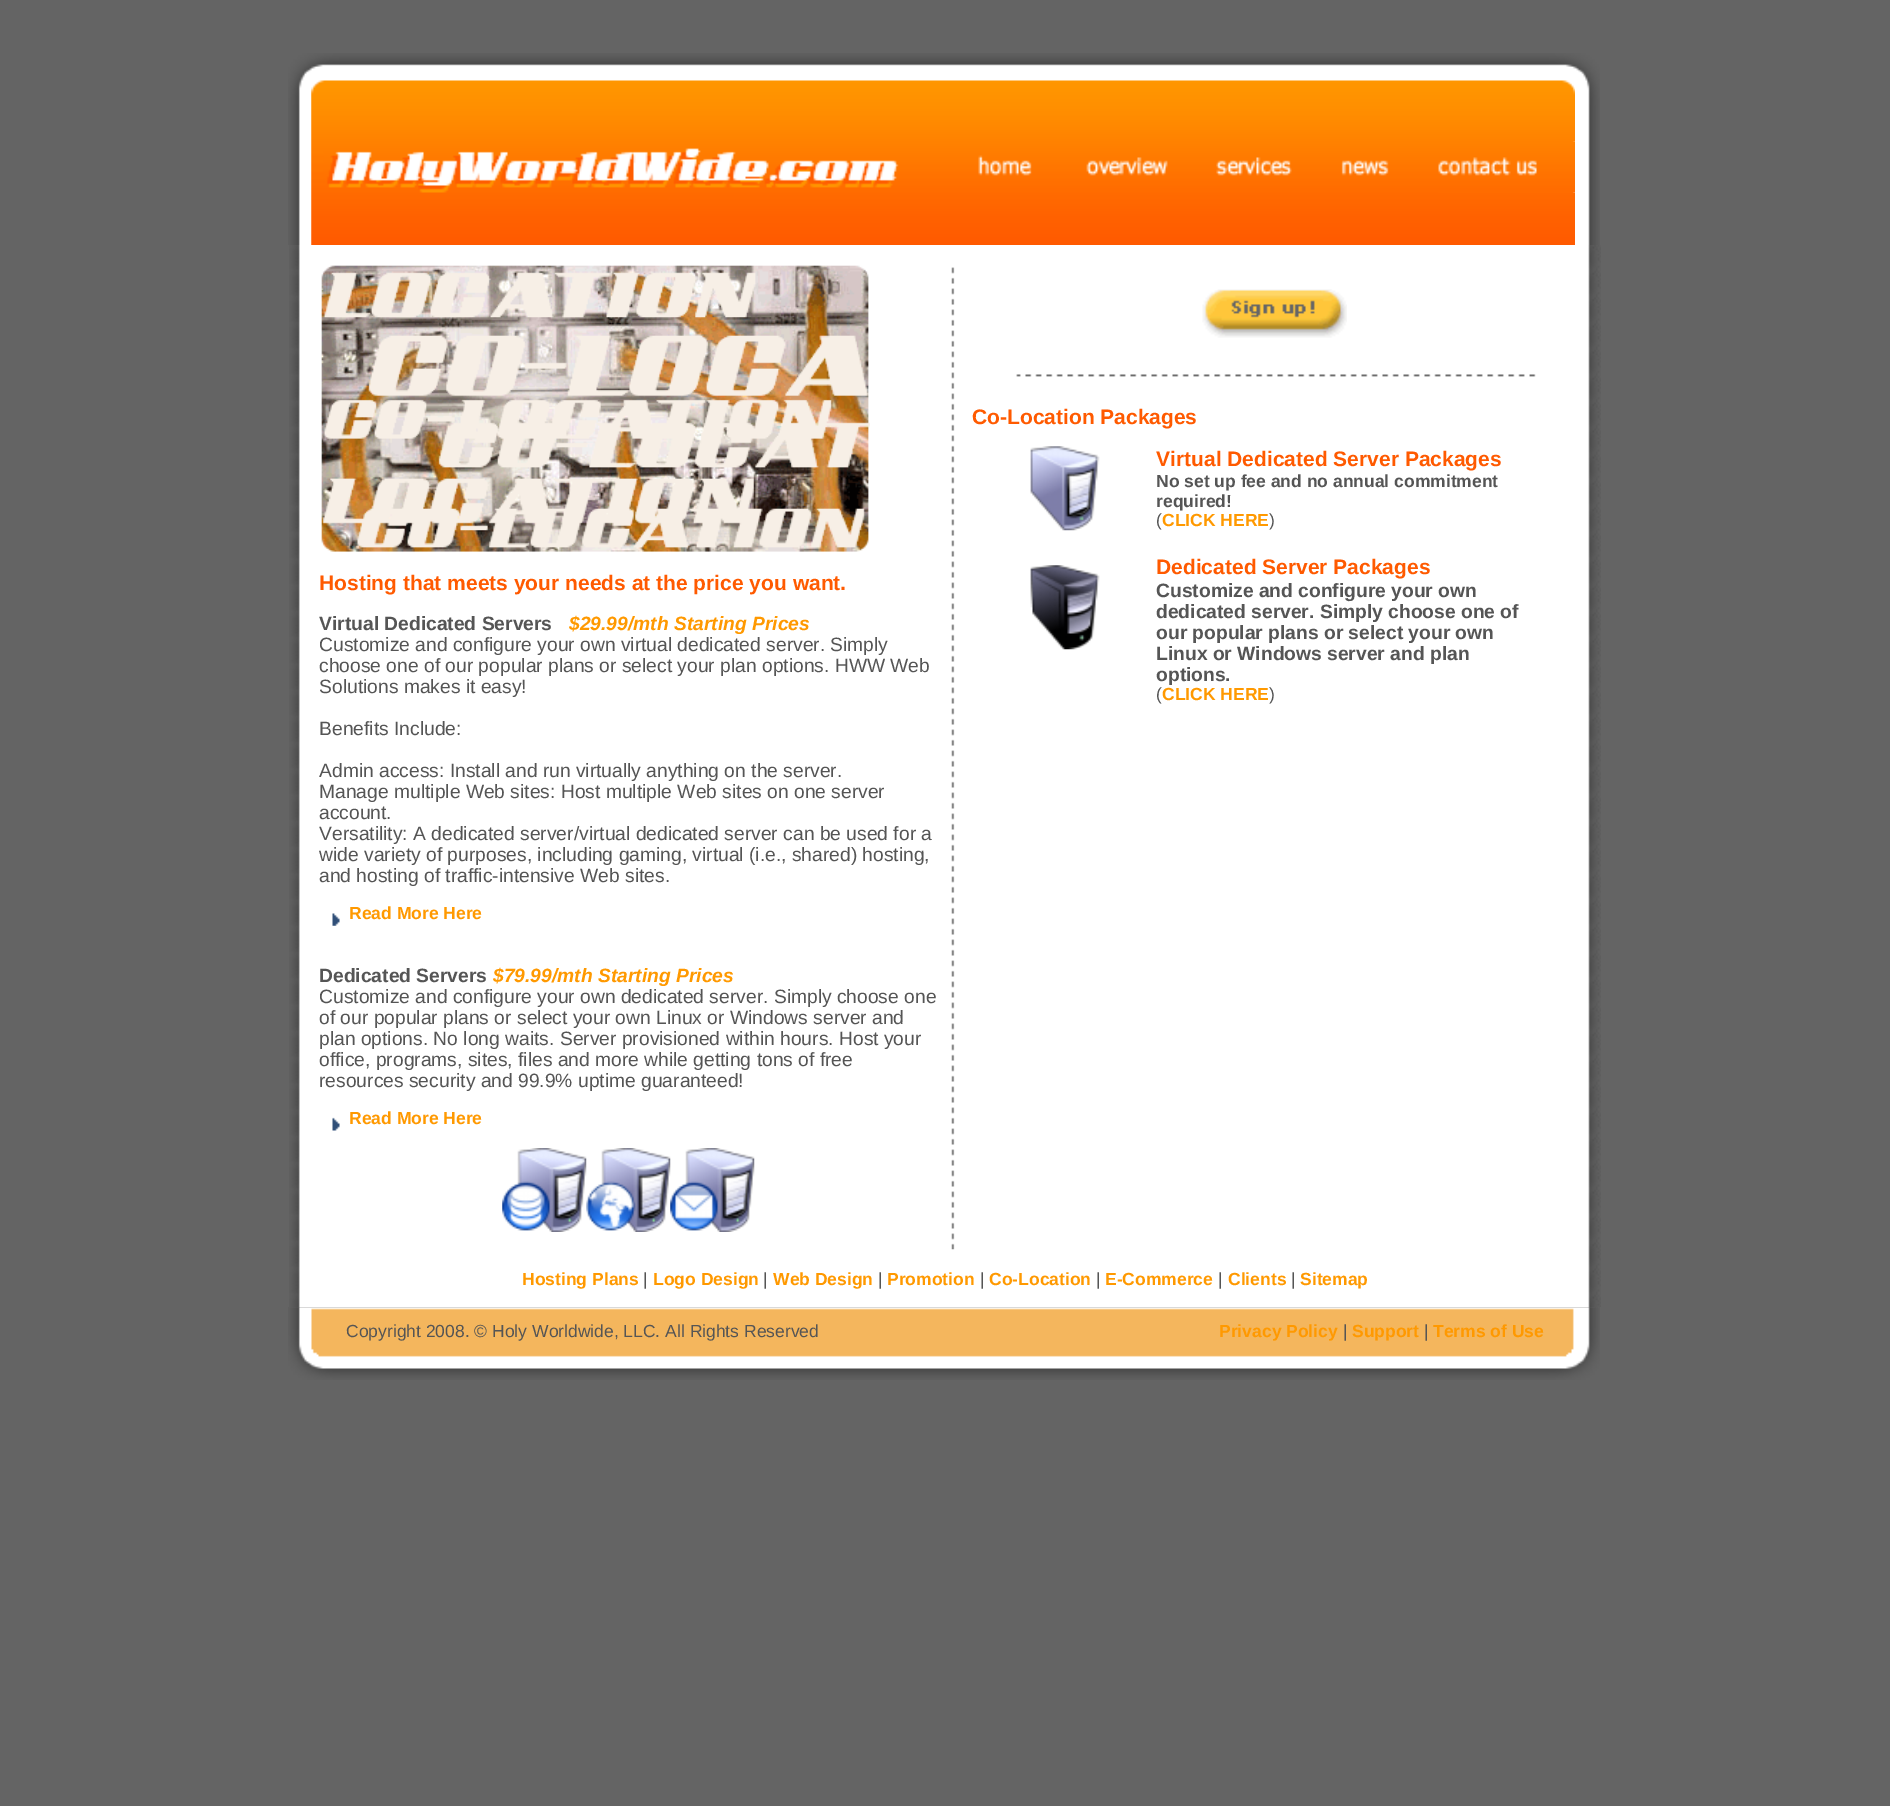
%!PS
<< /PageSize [1890 1806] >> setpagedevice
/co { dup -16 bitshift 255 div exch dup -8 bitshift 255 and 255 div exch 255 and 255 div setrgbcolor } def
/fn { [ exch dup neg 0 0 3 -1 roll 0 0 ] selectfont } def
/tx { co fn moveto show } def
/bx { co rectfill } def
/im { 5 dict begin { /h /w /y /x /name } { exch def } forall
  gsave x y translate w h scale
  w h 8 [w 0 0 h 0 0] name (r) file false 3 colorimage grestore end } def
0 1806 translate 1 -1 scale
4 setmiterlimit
0 0 1890 1806 16#646464 bx
(media/1.raw) 288 53 1312 192 im
(media/2.raw) 311 81 588 164 im
(media/3.raw) 1560 80 15 62 im
(media/4.raw) 978 155 54 21 im
(media/5.raw) 1086 157 82 19 im
(media/6.raw) 1216 157 76 19 im
(media/7.raw) 1341 160 48 16 im
(media/8.raw) 1438 141 137 52 im
(media/9.raw) 1572 192 3 53 im
(media/10.raw) 289 245 1312 1062 im
(media/11.raw) 321 265 549 287 im
(media/12.raw) 332 913 8 13 im
(media/13.raw) 332 1117 8 14 im
(media/14.raw) 502 1148 85 84 im
(media/15.raw) 586 1148 85 84 im
(media/16.raw) 670 1148 85 84 im
(media/17.raw) 951 267 4 983 im
(media/18.raw) 1202 289 145 49 im
(media/19.raw) 1016 374 520 3 im
(media/20.raw) 1030 446 70 85 im
(media/21.raw) 1030 565 70 85 im
(media/22.raw) 288 1307 1312 73 im
(Hosting that meets your needs at the price you want.) 319 590 /LiberationSans-Bold 21 16#FF5A00 tx
(Virtual Dedicated Servers) 319 630 /LiberationSans-Bold 19.25 16#555555 tx
($29.99/mth Starting Prices) 569 630 /LiberationSans-BoldItalic 19.25 16#FF9900 tx
(Customize and configure your own virtual dedicated server. Simply) 319 651 /LiberationSans-Regular 19.25 16#555555 tx
(choose one of our popular plans or select your plan options. HWW Web) 319 672 /LiberationSans-Regular 19.25 16#555555 tx
(Solutions makes it easy!) 319 693 /LiberationSans-Regular 19.25 16#555555 tx
(Benefits Include:) 319 735 /LiberationSans-Regular 19.25 16#555555 tx
(Admin access: Install and run virtually anything on the server.) 319 777 /LiberationSans-Regular 19.25 16#555555 tx
(Manage multiple Web sites: Host multiple Web sites on one server) 319 798 /LiberationSans-Regular 19.25 16#555555 tx
(account.) 319 819 /LiberationSans-Regular 19.25 16#555555 tx
(Versatility: A dedicated server/virtual dedicated server can be used for a) 319 840 /LiberationSans-Regular 19.25 16#555555 tx
(wide variety of purposes, including gaming, virtual \(i.e., shared\) hosting,) 319 861 /LiberationSans-Regular 19.25 16#555555 tx
(and hosting of traffic-intensive Web sites.) 319 882 /LiberationSans-Regular 19.25 16#555555 tx
(Read More Here) 349 919 /LiberationSans-Bold 17.5 16#FF9900 tx
(Dedicated Servers) 319 982 /LiberationSans-Bold 19.25 16#555555 tx
($79.99/mth Starting Prices) 493 982 /LiberationSans-BoldItalic 19.25 16#FF9900 tx
(Customize and configure your own dedicated server. Simply choose one) 319 1003 /LiberationSans-Regular 19.25 16#555555 tx
(of our popular plans or select your own Linux or Windows server and) 319 1024 /LiberationSans-Regular 19.25 16#555555 tx
(plan options. No long waits. Server provisioned within hours. Host your) 319 1045 /LiberationSans-Regular 19.25 16#555555 tx
(office, programs, sites, files and more while getting tons of free) 319 1066 /LiberationSans-Regular 19.25 16#555555 tx
(resources security and 99.9% uptime guaranteed!) 319 1087 /LiberationSans-Regular 19.25 16#555555 tx
(Read More Here) 349 1124 /LiberationSans-Bold 17.5 16#FF9900 tx
(Co-Location Packages) 972 424 /LiberationSans-Bold 21 16#FF5A00 tx
(Virtual Dedicated Server Packages) 1156 466 /LiberationSans-Bold 21 16#FF5A00 tx
(No set up fee and no annual commitment) 1156 487 /LiberationSans-Bold 17.5 16#555555 tx
(required!) 1156 507 /LiberationSans-Bold 17.5 16#555555 tx
(\() 1156 526 /LiberationSans-Regular 17.5 16#555555 tx
(CLICK HERE) 1162 526 /LiberationSans-Bold 17.5 16#FF9900 tx
(\)) 1269 526 /LiberationSans-Regular 17.5 16#555555 tx
(Dedicated Server Packages) 1156 574 /LiberationSans-Bold 21 16#FF5A00 tx
(Customize and configure your own) 1156 597 /LiberationSans-Bold 19.25 16#555555 tx
(dedicated server. Simply choose one of) 1156 618 /LiberationSans-Bold 19.25 16#555555 tx
(our popular plans or select your own) 1156 639 /LiberationSans-Bold 19.25 16#555555 tx
(Linux or Windows server and plan) 1156 660 /LiberationSans-Bold 19.25 16#555555 tx
(options.) 1156 681 /LiberationSans-Bold 19.25 16#555555 tx
(\() 1156 700 /LiberationSans-Regular 17.5 16#555555 tx
(CLICK HERE) 1162 700 /LiberationSans-Bold 17.5 16#FF9900 tx
(\)) 1269 700 /LiberationSans-Regular 17.5 16#555555 tx
(Hosting Plans) 522 1285 /LiberationSans-Bold 17.5 16#FF9900 tx
(|) 643 1285 /LiberationSans-Regular 17.5 16#555555 tx
(Logo Design) 653 1285 /LiberationSans-Bold 17.5 16#FF9900 tx
(|) 763 1285 /LiberationSans-Regular 17.5 16#555555 tx
(Web Design) 773 1285 /LiberationSans-Bold 17.5 16#FF9900 tx
(|) 878 1285 /LiberationSans-Regular 17.5 16#555555 tx
(Promotion) 887 1285 /LiberationSans-Bold 17.5 16#FF9900 tx
(|) 980 1285 /LiberationSans-Regular 17.5 16#555555 tx
(Co-Location) 989 1285 /LiberationSans-Bold 17.5 16#FF9900 tx
(|) 1096 1285 /LiberationSans-Regular 17.5 16#555555 tx
(E-Commerce) 1105 1285 /LiberationSans-Bold 17.5 16#FF9900 tx
(|) 1218 1285 /LiberationSans-Regular 17.5 16#555555 tx
(Clients) 1228 1285 /LiberationSans-Bold 17.5 16#FF9900 tx
(|) 1291 1285 /LiberationSans-Regular 17.5 16#555555 tx
(Sitemap) 1300 1285 /LiberationSans-Bold 17.5 16#FF9900 tx
(Copyright 2008. © Holy Worldwide, LLC. All Rights Reserved) 346 1337 /LiberationSans-Regular 17.5 16#555555 tx
(Privacy Policy) 1219 1337 /LiberationSans-Bold 17.5 16#FF9900 tx
(|) 1343 1337 /LiberationSans-Regular 17.5 16#555555 tx
(Support) 1352 1337 /LiberationSans-Bold 17.5 16#FF9900 tx
(|) 1424 1337 /LiberationSans-Regular 17.5 16#555555 tx
(Terms of Use) 1433 1337 /LiberationSans-Bold 17.5 16#FF9900 tx
showpage
